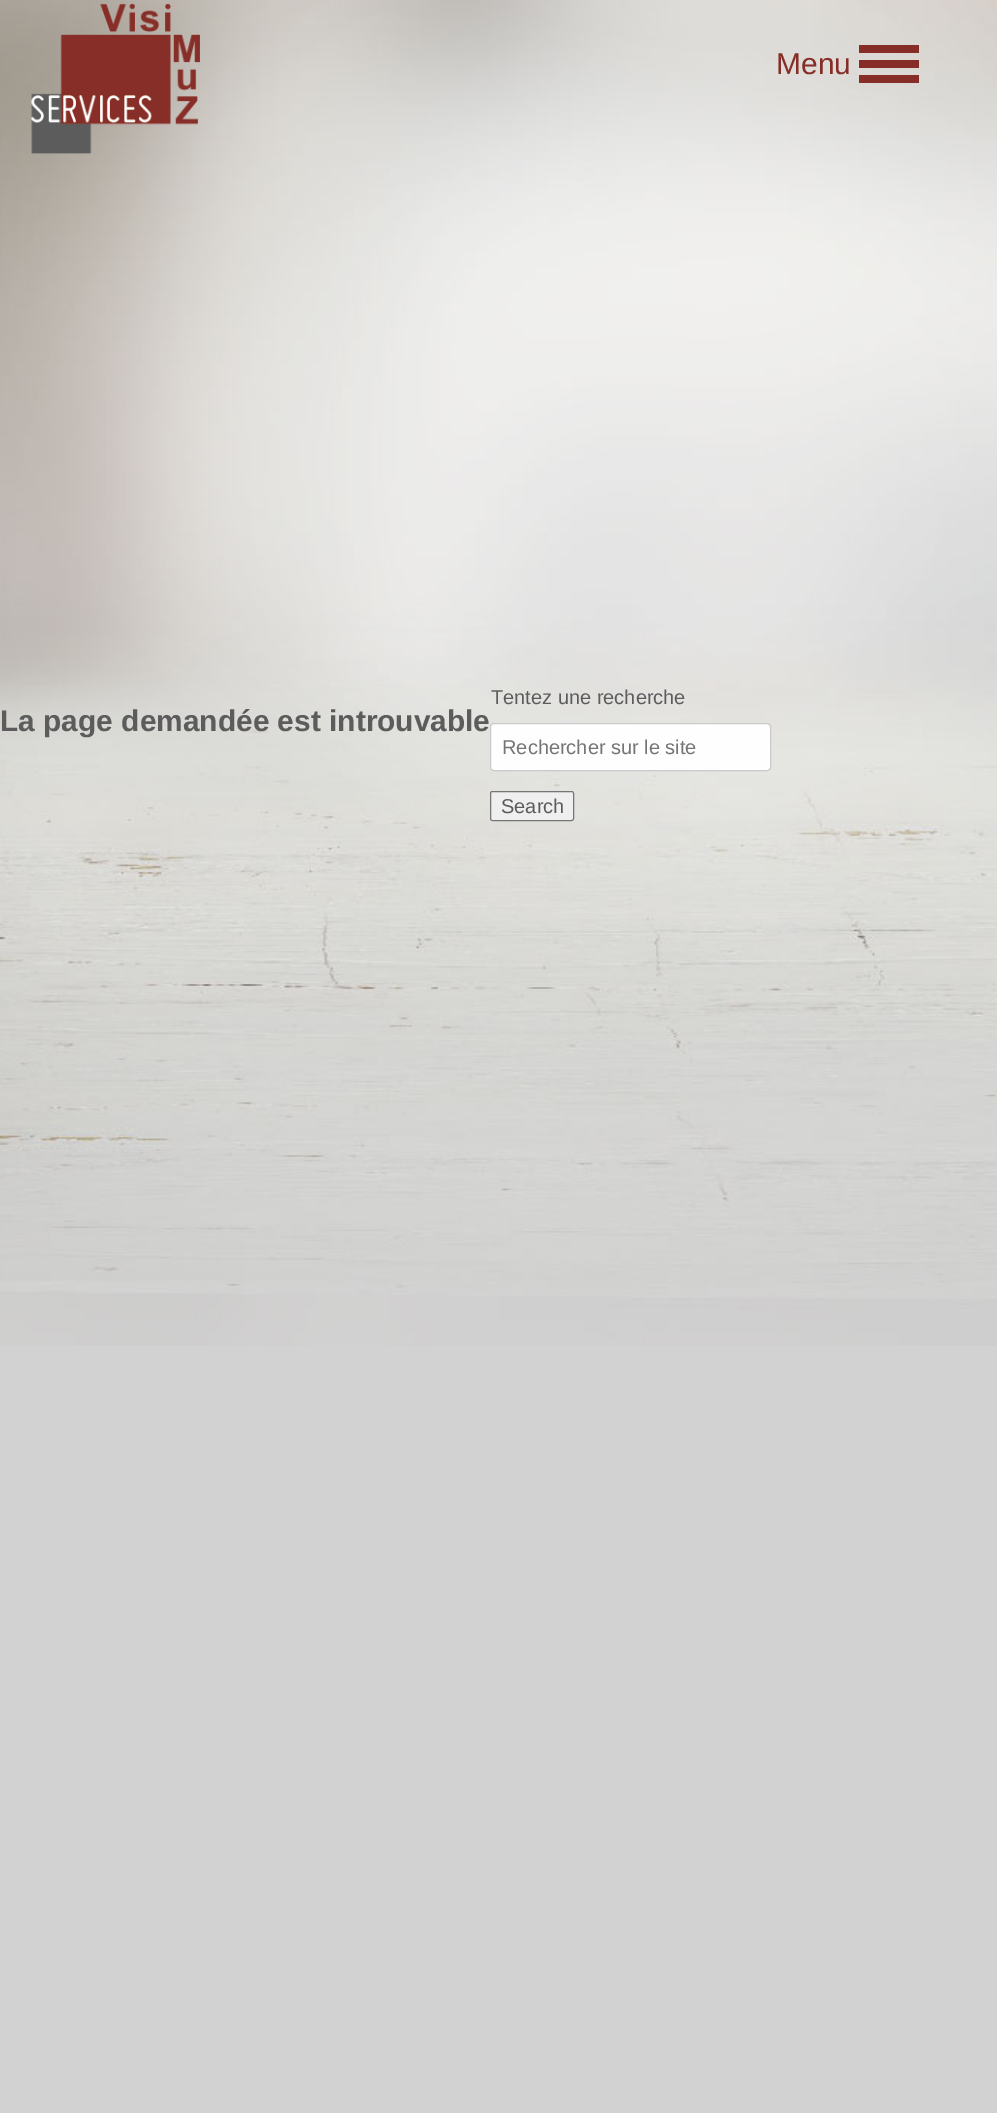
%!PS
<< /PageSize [997 2113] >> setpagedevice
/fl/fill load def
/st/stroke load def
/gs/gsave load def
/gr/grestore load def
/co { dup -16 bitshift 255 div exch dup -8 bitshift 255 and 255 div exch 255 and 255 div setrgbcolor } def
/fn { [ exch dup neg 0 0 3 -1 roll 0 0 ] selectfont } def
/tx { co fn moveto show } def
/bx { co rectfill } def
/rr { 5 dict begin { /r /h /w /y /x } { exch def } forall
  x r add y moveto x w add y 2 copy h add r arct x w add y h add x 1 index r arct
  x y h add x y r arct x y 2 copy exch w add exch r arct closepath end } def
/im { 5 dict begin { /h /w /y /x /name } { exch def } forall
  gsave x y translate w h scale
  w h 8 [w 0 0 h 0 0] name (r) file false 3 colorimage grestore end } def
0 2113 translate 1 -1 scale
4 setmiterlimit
0 0 997 2113 16#D2D2D2 bx
(media/1.raw) 0 0 997 1346 im
(media/2.raw) 31 3 169 151 im
859 45 60 8 16#872D28 bx
859 60 60 8 16#872D28 bx
859 75 60 8 16#872D28 bx
16#FEFEFE co
490.5 723.5 280 47 3.5 rr gs fl gr
16#CACACA co
st
16#EFEFEF co
490.5 791.5 83 29 2 rr gs fl gr
16#767676 co
st
(Menu) 776 74 /LiberationSans-Regular 30 16#872D28 tx
(La page demandée est introuvable) 0 731 /LiberationSans-Bold 29.9 16#5D5C5C tx
(Tentez une recherche) 491 704 /LiberationSans-Regular 20 16#5D5C5C tx
(Rechercher sur le site) 502 754 /LiberationSans-Regular 20 16#757575 tx
(Search) 501 813 /LiberationSans-Regular 20 16#5D5C5C tx
showpage
